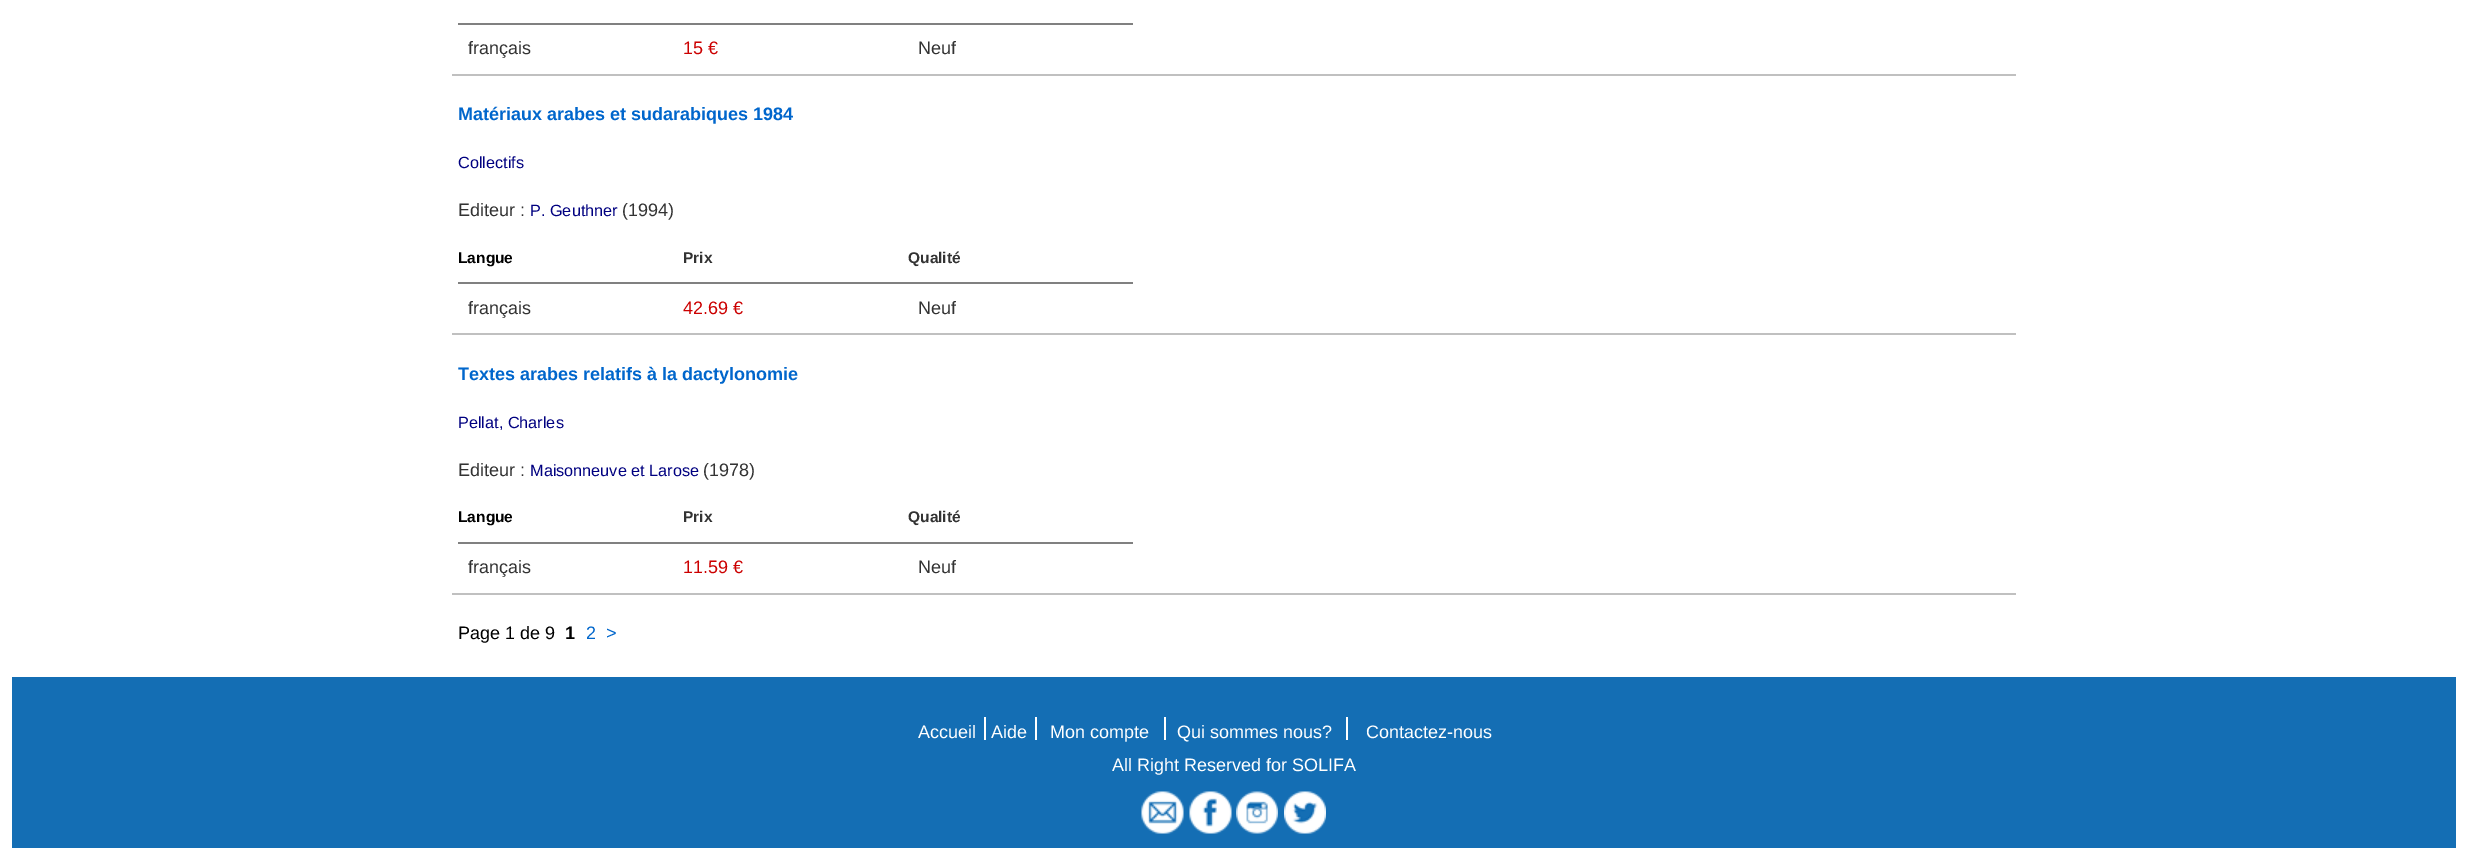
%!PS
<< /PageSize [2467 848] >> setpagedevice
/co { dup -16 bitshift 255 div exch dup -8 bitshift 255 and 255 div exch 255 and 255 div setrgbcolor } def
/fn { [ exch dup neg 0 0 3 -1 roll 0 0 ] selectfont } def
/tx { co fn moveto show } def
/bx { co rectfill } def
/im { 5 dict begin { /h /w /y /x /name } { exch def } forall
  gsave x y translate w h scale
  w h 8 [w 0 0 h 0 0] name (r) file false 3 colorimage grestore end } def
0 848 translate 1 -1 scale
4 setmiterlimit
0 0 2467 848 16#FFFFFF bx
452 74 1564 2 16#C0C0C0 bx
458 23 675 2 16#808080 bx
452 333 1564 2 16#C0C0C0 bx
458 282 675 2 16#808080 bx
452 593 1564 2 16#C0C0C0 bx
458 542 675 2 16#808080 bx
12 677 2444 171 16#146EB4 bx
984 717 2 23 16#FFFFFF bx
1035 717 2 23 16#FFFFFF bx
1164 717 2 23 16#FFFFFF bx
1346 717 2 23 16#FFFFFF bx
(media/1.raw) 1141 791 43 43 im
(media/2.raw) 1189 791 43 43 im
(media/3.raw) 1236 791 42 43 im
(media/4.raw) 1284 791 42 43 im
(français) 468 54 /LiberationSans-Regular 18 16#333333 tx
(15 €) 683 54 /LiberationSans-Regular 18 16#CC0000 tx
(Neuf) 918 54 /LiberationSans-Regular 18 16#333333 tx
(Matériaux arabes et sudarabiques 1984) 458 120 /LiberationSans-Bold 18 16#0066CC tx
(Collectifs) 458 168 /LiberationSans-Regular 16.25 16#000080 tx
(Editeur :) 458 216 /LiberationSans-Regular 18 16#333333 tx
(P. Geuthner) 530 216 /LiberationSans-Regular 16.25 16#000080 tx
(\(1994\)) 622 216 /LiberationSans-Regular 18 16#333333 tx
(Langue) 458 263 /LiberationSans-Bold 15.5 16#000000 tx
(Prix) 683 263 /LiberationSans-Bold 15.5 16#333333 tx
(Qualité) 908 263 /LiberationSans-Bold 15.5 16#333333 tx
(français) 468 314 /LiberationSans-Regular 18 16#333333 tx
(42.69 €) 683 314 /LiberationSans-Regular 18 16#CC0000 tx
(Neuf) 918 314 /LiberationSans-Regular 18 16#333333 tx
(Textes arabes relatifs à la dactylonomie) 458 380 /LiberationSans-Bold 18 16#0066CC tx
(Pellat, Charles) 458 428 /LiberationSans-Regular 16.25 16#000080 tx
(Editeur :) 458 476 /LiberationSans-Regular 18 16#333333 tx
(Maisonneuve et Larose) 530 476 /LiberationSans-Regular 16.25 16#000080 tx
(\(1978\)) 703 476 /LiberationSans-Regular 18 16#333333 tx
(Langue) 458 522 /LiberationSans-Bold 15.5 16#000000 tx
(Prix) 683 522 /LiberationSans-Bold 15.5 16#333333 tx
(Qualité) 908 522 /LiberationSans-Bold 15.5 16#333333 tx
(français) 468 573 /LiberationSans-Regular 18 16#333333 tx
(11.59 €) 683 573 /LiberationSans-Regular 18 16#CC0000 tx
(Neuf) 918 573 /LiberationSans-Regular 18 16#333333 tx
(Page 1 de 9) 458 639 /LiberationSans-Regular 18 16#000000 tx
(1) 565 639 /LiberationSans-Bold 18 16#000000 tx
(2) 586 639 /LiberationSans-Regular 18 16#0066CC tx
(>) 606 639 /LiberationSans-Regular 18 16#0066CC tx
(Accueil) 918 738 /LiberationSans-Regular 18 16#FFFFFF tx
(Aide) 991 738 /LiberationSans-Regular 18 16#FFFFFF tx
(Mon compte) 1050 738 /LiberationSans-Regular 18 16#FFFFFF tx
(Qui sommes nous?) 1177 738 /LiberationSans-Regular 18 16#FFFFFF tx
(Contactez-nous) 1366 738 /LiberationSans-Regular 18 16#FFFFFF tx
(All Right Reserved for SOLIFA) 1112 771 /LiberationSans-Regular 18 16#FFFFFF tx
showpage
